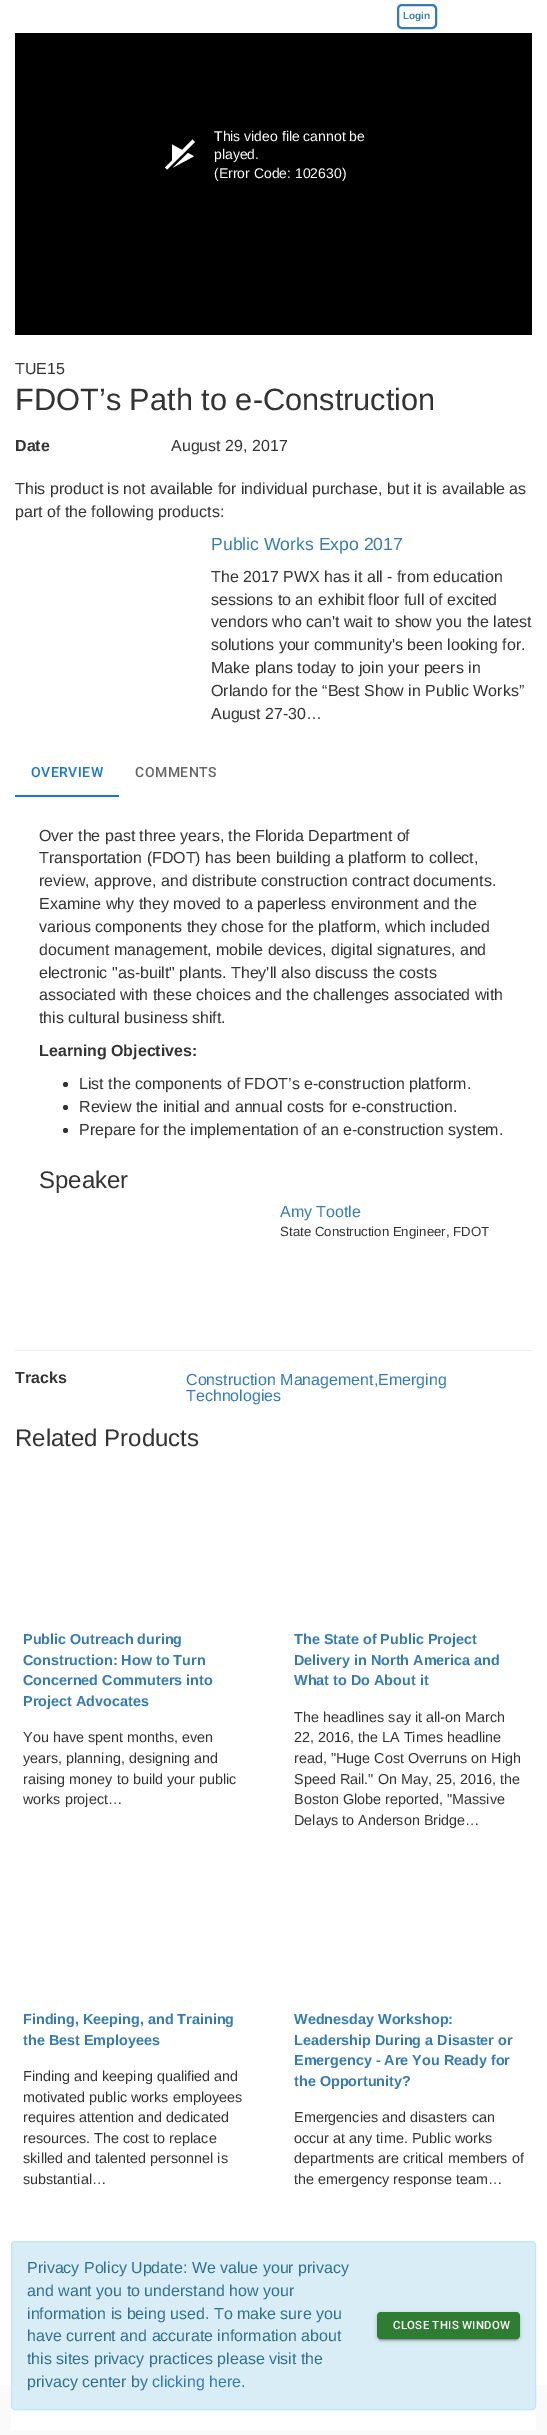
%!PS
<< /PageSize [547 2435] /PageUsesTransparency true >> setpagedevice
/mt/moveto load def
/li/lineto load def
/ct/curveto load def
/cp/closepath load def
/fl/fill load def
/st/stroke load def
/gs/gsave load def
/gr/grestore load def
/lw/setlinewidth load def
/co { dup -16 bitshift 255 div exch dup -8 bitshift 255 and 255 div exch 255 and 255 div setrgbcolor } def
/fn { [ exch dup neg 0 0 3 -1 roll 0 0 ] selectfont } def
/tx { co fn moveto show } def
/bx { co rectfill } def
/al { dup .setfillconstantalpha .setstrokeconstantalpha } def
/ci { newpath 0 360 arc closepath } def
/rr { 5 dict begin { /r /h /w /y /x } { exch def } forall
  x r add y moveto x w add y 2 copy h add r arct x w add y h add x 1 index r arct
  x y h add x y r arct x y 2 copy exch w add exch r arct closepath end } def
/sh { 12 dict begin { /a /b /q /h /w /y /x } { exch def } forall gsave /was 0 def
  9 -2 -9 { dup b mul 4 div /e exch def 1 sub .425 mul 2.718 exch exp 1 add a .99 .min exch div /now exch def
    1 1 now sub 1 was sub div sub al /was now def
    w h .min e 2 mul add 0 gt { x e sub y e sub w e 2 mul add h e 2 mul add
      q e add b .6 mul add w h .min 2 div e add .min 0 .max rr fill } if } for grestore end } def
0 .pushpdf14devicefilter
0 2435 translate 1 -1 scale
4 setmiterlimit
0 0 547 2435 16#FFFFFF bx
16#337AB7 co
2 lw
398 5 38 23 4 rr st
15 33 517 302 16#000000 bx
16#FFFFFF co
193.5 156.5 mt 173 167.5 li 188 153 li 193.5 156 194.5 156.5 193.5 156.5 ct cp 192.5 139.5 mt 182 150 li 172 144.5 li 172 160.5 li 165 167.5 li 167 169.5 li 195 142 li cp fl
15 795 104 2 16#1976D2 bx
16#333333 co
65.5 1084.5 2.5 ci fl
65.5 1107.5 2.5 ci fl
65.5 1130.5 2.5 ci fl
15 1350 517 1 16#EEEEEE bx
0 2385 547 50 16#FAFAFA bx
11 2385 525 45 16#FFFFFF bx
16#D9EDF7 co
11.5 2241.5 524 168 3.5 rr gs fl gr
16#BCE8F1 co
1 lw
st
16#000000 co
377 2313 143 27 4 2.5 .12 sh
377 2314 143 27 4 1 .14 sh
379 2317 139 23 2 .5 .2 sh
16#2E7D32 co
377 2312 143 27 4 rr fl
(Login) 403 19 /LiberationSans-Bold 10 16#337AB7 tx
(This video file cannot be) 214 141 /LiberationSans-Regular 14 16#FFFFFF tx
(played.) 214 159 /LiberationSans-Regular 14 16#FFFFFF tx
(\(Error Code: 102630\)) 214 178 /LiberationSans-Regular 14 16#FFFFFF tx
(TUE15) 15 374 /LiberationSans-Regular 16 16#333333 tx
(FDOT’s Path to e-Construction) 15 410 /LiberationSans-Regular 30.75 16#333333 tx
(Date) 15 451 /LiberationSans-Bold 16 16#333333 tx
(August 29, 2017) 171 451 /LiberationSans-Regular 16 16#333333 tx
(This product is not available for individual purchase, but it is available as) 15 494 /LiberationSans-Regular 16 16#333333 tx
(part of the following products:) 15 517 /LiberationSans-Regular 16 16#333333 tx
(Public Works Expo 2017) 211 550 /LiberationSans-Regular 17.6 16#337AB7 tx
(The 2017 PWX has it all - from education) 211 582 /LiberationSans-Regular 16 16#333333 tx
(sessions to an exhibit floor full of excited) 211 605 /LiberationSans-Regular 16 16#333333 tx
(vendors who can't wait to show you the latest) 211 627 /LiberationSans-Regular 16 16#333333 tx
(solutions your community's been looking for.) 211 650 /LiberationSans-Regular 16 16#333333 tx
(Make plans today to join your peers in) 211 673 /LiberationSans-Regular 16 16#333333 tx
(Orlando for the “Best Show in Public Works”) 211 696 /LiberationSans-Regular 16 16#333333 tx
(August 27-30…) 211 719 /LiberationSans-Regular 16 16#333333 tx
/Roboto-Medium 14 fn
16#1976D2 co
31 777 mt .5 0 (OVERVIEW) ashow
16#666666 co
135 777 mt .5 0 (COMMENTS) ashow
(Over the past three years, the Florida Department of) 39 841 /LiberationSans-Regular 16 16#333333 tx
(Transportation \(FDOT\) has been building a platform to collect,) 39 863 /LiberationSans-Regular 16 16#333333 tx
(review, approve, and distribute construction contract documents.) 39 886 /LiberationSans-Regular 16 16#333333 tx
(Examine why they moved to a paperless environment and the) 39 909 /LiberationSans-Regular 16 16#333333 tx
(various components they chose for the platform, which included) 39 932 /LiberationSans-Regular 16 16#333333 tx
(document management, mobile devices, digital signatures, and) 39 955 /LiberationSans-Regular 16 16#333333 tx
(electronic "as-built" plants. They'll also discuss the costs) 39 978 /LiberationSans-Regular 16 16#333333 tx
(associated with these choices and the challenges associated with) 39 1000 /LiberationSans-Regular 16 16#333333 tx
(this cultural business shift.) 39 1023 /LiberationSans-Regular 16 16#333333 tx
(Learning Objectives:) 39 1056 /LiberationSans-Bold 16 16#333333 tx
(List the components of FDOT’s e-construction platform.) 79 1089 /LiberationSans-Regular 16 16#333333 tx
(Review the initial and annual costs for e-construction.) 79 1112 /LiberationSans-Regular 16 16#333333 tx
(Prepare for the implementation of an e-construction system.) 79 1135 /LiberationSans-Regular 16 16#333333 tx
(Speaker) 39 1188 /LiberationSans-Regular 24 16#333333 tx
(Amy Tootle) 280 1217 /LiberationSans-Regular 16 16#337AB7 tx
(State Construction Engineer, FDOT) 280 1236 /LiberationSans-Regular 13.25 16#333333 tx
(Tracks) 15 1383 /LiberationSans-Bold 16 16#333333 tx
(Construction Management,Emerging) 186 1385 /LiberationSans-Regular 16 16#337AB7 tx
(Technologies) 186 1401 /LiberationSans-Regular 16 16#337AB7 tx
(Related Products) 15 1446 /LiberationSans-Regular 24 16#333333 tx
(Public Outreach during) 23 1644 /LiberationSans-Bold 14.4 16#337AB7 tx
(Construction: How to Turn) 23 1665 /LiberationSans-Bold 14.4 16#337AB7 tx
(Concerned Commuters into) 23 1685 /LiberationSans-Bold 14.4 16#337AB7 tx
(Project Advocates) 23 1706 /LiberationSans-Bold 14.4 16#337AB7 tx
(You have spent months, even) 23 1742 /LiberationSans-Regular 14.4 16#333333 tx
(years, planning, designing and) 23 1763 /LiberationSans-Regular 14.4 16#333333 tx
(raising money to build your public) 23 1784 /LiberationSans-Regular 14.4 16#333333 tx
(works project…) 23 1804 /LiberationSans-Regular 14.4 16#333333 tx
(The State of Public Project) 294 1644 /LiberationSans-Bold 14.4 16#337AB7 tx
(Delivery in North America and) 294 1665 /LiberationSans-Bold 14.4 16#337AB7 tx
(What to Do About it) 294 1685 /LiberationSans-Bold 14.4 16#337AB7 tx
(The headlines say it all-on March) 294 1722 /LiberationSans-Regular 14.4 16#333333 tx
(22, 2016, the LA Times headline) 294 1742 /LiberationSans-Regular 14.4 16#333333 tx
(read, "Huge Cost Overruns on High) 294 1763 /LiberationSans-Regular 14.4 16#333333 tx
(Speed Rail." On May, 25, 2016, the) 294 1784 /LiberationSans-Regular 14.4 16#333333 tx
(Boston Globe reported, "Massive) 294 1804 /LiberationSans-Regular 14.4 16#333333 tx
(Delays to Anderson Bridge…) 294 1825 /LiberationSans-Regular 14.4 16#333333 tx
(Finding, Keeping, and Training) 23 2024 /LiberationSans-Bold 14.4 16#337AB7 tx
(the Best Employees) 23 2045 /LiberationSans-Bold 14.4 16#337AB7 tx
(Finding and keeping qualified and) 23 2081 /LiberationSans-Regular 14.4 16#333333 tx
(motivated public works employees) 23 2102 /LiberationSans-Regular 14.4 16#333333 tx
(requires attention and dedicated) 23 2122 /LiberationSans-Regular 14.4 16#333333 tx
(resources. The cost to replace) 23 2143 /LiberationSans-Regular 14.4 16#333333 tx
(skilled and talented personnel is) 23 2163 /LiberationSans-Regular 14.4 16#333333 tx
(substantial…) 23 2184 /LiberationSans-Regular 14.4 16#333333 tx
(Wednesday Workshop:) 294 2024 /LiberationSans-Bold 14.4 16#337AB7 tx
(Leadership During a Disaster or) 294 2045 /LiberationSans-Bold 14.4 16#337AB7 tx
(Emergency - Are You Ready for) 294 2065 /LiberationSans-Bold 14.4 16#337AB7 tx
(the Opportunity?) 294 2086 /LiberationSans-Bold 14.4 16#337AB7 tx
(Emergencies and disasters can) 294 2122 /LiberationSans-Regular 14.4 16#333333 tx
(occur at any time. Public works) 294 2143 /LiberationSans-Regular 14.4 16#333333 tx
(departments are critical members of) 294 2163 /LiberationSans-Regular 14.4 16#333333 tx
(the emergency response team…) 294 2184 /LiberationSans-Regular 14.4 16#333333 tx
(Privacy Policy Update: We value your privacy) 27 2273 /LiberationSans-Regular 16 16#31708F tx
(and want you to understand how your) 27 2296 /LiberationSans-Regular 16 16#31708F tx
(information is being used. To make sure you) 27 2319 /LiberationSans-Regular 16 16#31708F tx
(have current and accurate information about) 27 2341 /LiberationSans-Regular 16 16#31708F tx
(this sites privacy practices please visit the) 27 2364 /LiberationSans-Regular 16 16#31708F tx
(privacy center by) 27 2387 /LiberationSans-Regular 16 16#31708F tx
(clicking here) 152 2387 /LiberationSans-Regular 16 16#337AB7 tx
(.) 241 2387 /LiberationSans-Regular 16 16#31708F tx
/Roboto-Medium 11.4 fn
16#FFFFFF co
393 2329 mt .3 0 (CLOSE THIS WINDOW) ashow
.poppdf14devicefilter showpage
